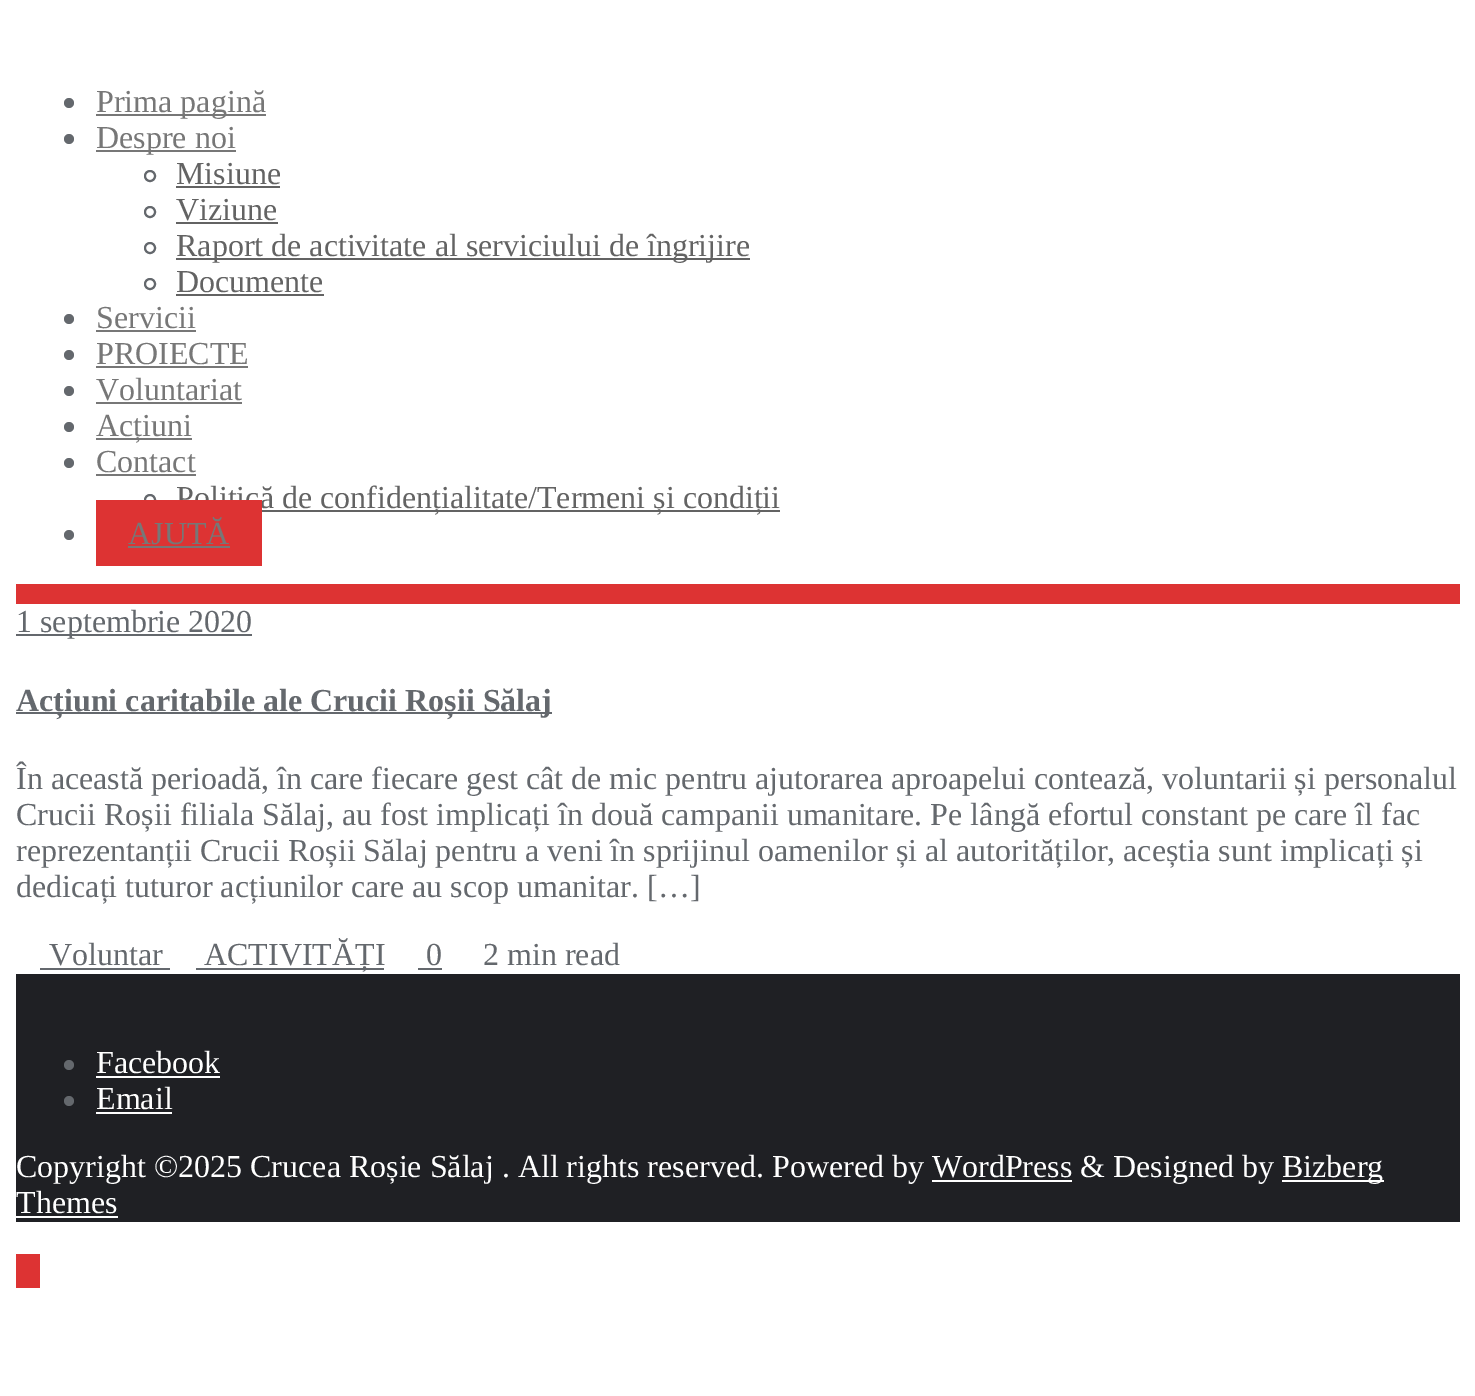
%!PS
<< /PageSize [1475 1396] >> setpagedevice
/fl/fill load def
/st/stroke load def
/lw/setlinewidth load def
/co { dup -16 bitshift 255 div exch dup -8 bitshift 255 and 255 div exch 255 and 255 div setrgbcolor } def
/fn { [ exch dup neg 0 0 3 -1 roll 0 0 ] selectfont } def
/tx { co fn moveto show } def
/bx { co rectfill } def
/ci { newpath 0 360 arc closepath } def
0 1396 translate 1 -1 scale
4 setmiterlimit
0 0 1475 1396 16#FFFFFF bx
16 584 1444 20 16#DD3333 bx
16#64686D co
69 103 5 ci fl
96 114 170 2 16#777777 bx
16#64686D co
69 139 5 ci fl
96 150 140 2 16#777777 bx
16#64686D co
2 lw
150 176 5 ci st
176 186 104 2 16#636363 bx
16#64686D co
150 212 5 ci st
176 222 102 2 16#636363 bx
16#64686D co
150 248 5 ci st
176 258 574 2 16#636363 bx
16#64686D co
150 284 5 ci st
176 294 148 2 16#636363 bx
16#64686D co
69 319 5 ci fl
96 330 100 2 16#777777 bx
16#64686D co
69 355 5 ci fl
96 366 152 2 16#777777 bx
16#64686D co
69 391 5 ci fl
96 402 146 2 16#777777 bx
16#64686D co
69 427 5 ci fl
96 438 96 2 16#777777 bx
16#64686D co
69 463 5 ci fl
96 474 100 2 16#777777 bx
16#64686D co
150 500 5 ci st
262 510 518 2 16#636363 bx
16#64686D co
69 535 5 ci fl
16 634 236 2 16#64686D bx
16 712 536 2 16#64686D bx
40 968 130 2 16#64686D bx
196 968 188 2 16#64686D bx
418 968 24 2 16#64686D bx
16 974 1444 248 16#1F2024 bx
16#64686D co
69 1065 5 ci fl
96 1076 124 2 16#FFFFFF bx
16#64686D co
69 1101 5 ci fl
96 1112 76 2 16#FFFFFF bx
932 1180 140 2 16#FFFFFF bx
1282 1180 102 2 16#FFFFFF bx
16 1216 102 2 16#FFFFFF bx
16 1254 24 34 16#DD3333 bx
(Prima pagină) 96 112 /LiberationSerif-Regular 32 16#777777 tx
(Despre noi) 96 148 /LiberationSerif-Regular 32 16#777777 tx
(Misiune) 176 184 /LiberationSerif-Regular 32 16#636363 tx
(Viziune) 176 220 /LiberationSerif-Regular 32 16#636363 tx
(Raport de activitate al serviciului de îngrijire) 176 256 /LiberationSerif-Regular 32 16#636363 tx
(Documente) 176 292 /LiberationSerif-Regular 32 16#636363 tx
(Servicii) 96 328 /LiberationSerif-Regular 32 16#777777 tx
(PROIECTE) 96 364 /LiberationSerif-Regular 32 16#777777 tx
(Voluntariat) 96 400 /LiberationSerif-Regular 32 16#777777 tx
(Acțiuni) 96 436 /LiberationSerif-Regular 32 16#777777 tx
(Contact) 96 472 /LiberationSerif-Regular 32 16#777777 tx
(Politică de confidențialitate/Termeni și condiții) 176 508 /LiberationSerif-Regular 32 16#636363 tx
96 500 166 66 16#DD3333 bx
(AJUTĂ) 128 544 /LiberationSerif-Regular 32 16#777777 tx
128 546 102 2 16#777777 bx
(1 septembrie 2020) 16 632 /LiberationSerif-Regular 32 16#64686D tx
(Acțiuni caritabile ale Crucii Roșii Sălaj) 16 711 /LiberationSerif-Bold 32 16#64686D tx
(În această perioadă, în care fiecare gest cât de mic pentru ajutorarea aproapelui contează, voluntarii și personalul) 16 789 /LiberationSerif-Regular 32 16#64686D tx
(Crucii Roșii filiala Sălaj, au fost implicați în două campanii umanitare. Pe lângă efortul constant pe care îl fac) 16 825 /LiberationSerif-Regular 32 16#64686D tx
(reprezentanții Crucii Roșii Sălaj pentru a veni în sprijinul oamenilor și al autorităților, aceștia sunt implicați și) 16 861 /LiberationSerif-Regular 32 16#64686D tx
(dedicați tuturor acțiunilor care au scop umanitar. […]) 16 897 /LiberationSerif-Regular 32 16#64686D tx
(Voluntar) 49 965 /LiberationSerif-Regular 32 16#64686D tx
(ACTIVITĂȚI) 204 965 /LiberationSerif-Regular 32 16#64686D tx
(0) 426 965 /LiberationSerif-Regular 32 16#64686D tx
(2 min read) 483 965 /LiberationSerif-Regular 32 16#64686D tx
(Facebook) 96 1073 /LiberationSerif-Regular 32 16#FFFFFF tx
(Email) 96 1109 /LiberationSerif-Regular 32 16#FFFFFF tx
(Copyright ©2025 Crucea Roșie Sălaj . All rights reserved. Powered by WordPress & Designed by) 16 1177 /LiberationSerif-Regular 32 16#FFFFFF tx
(Bizberg) 1282 1177 /LiberationSerif-Regular 32 16#FFFFFF tx
(Themes) 16 1213 /LiberationSerif-Regular 32 16#FFFFFF tx
showpage
